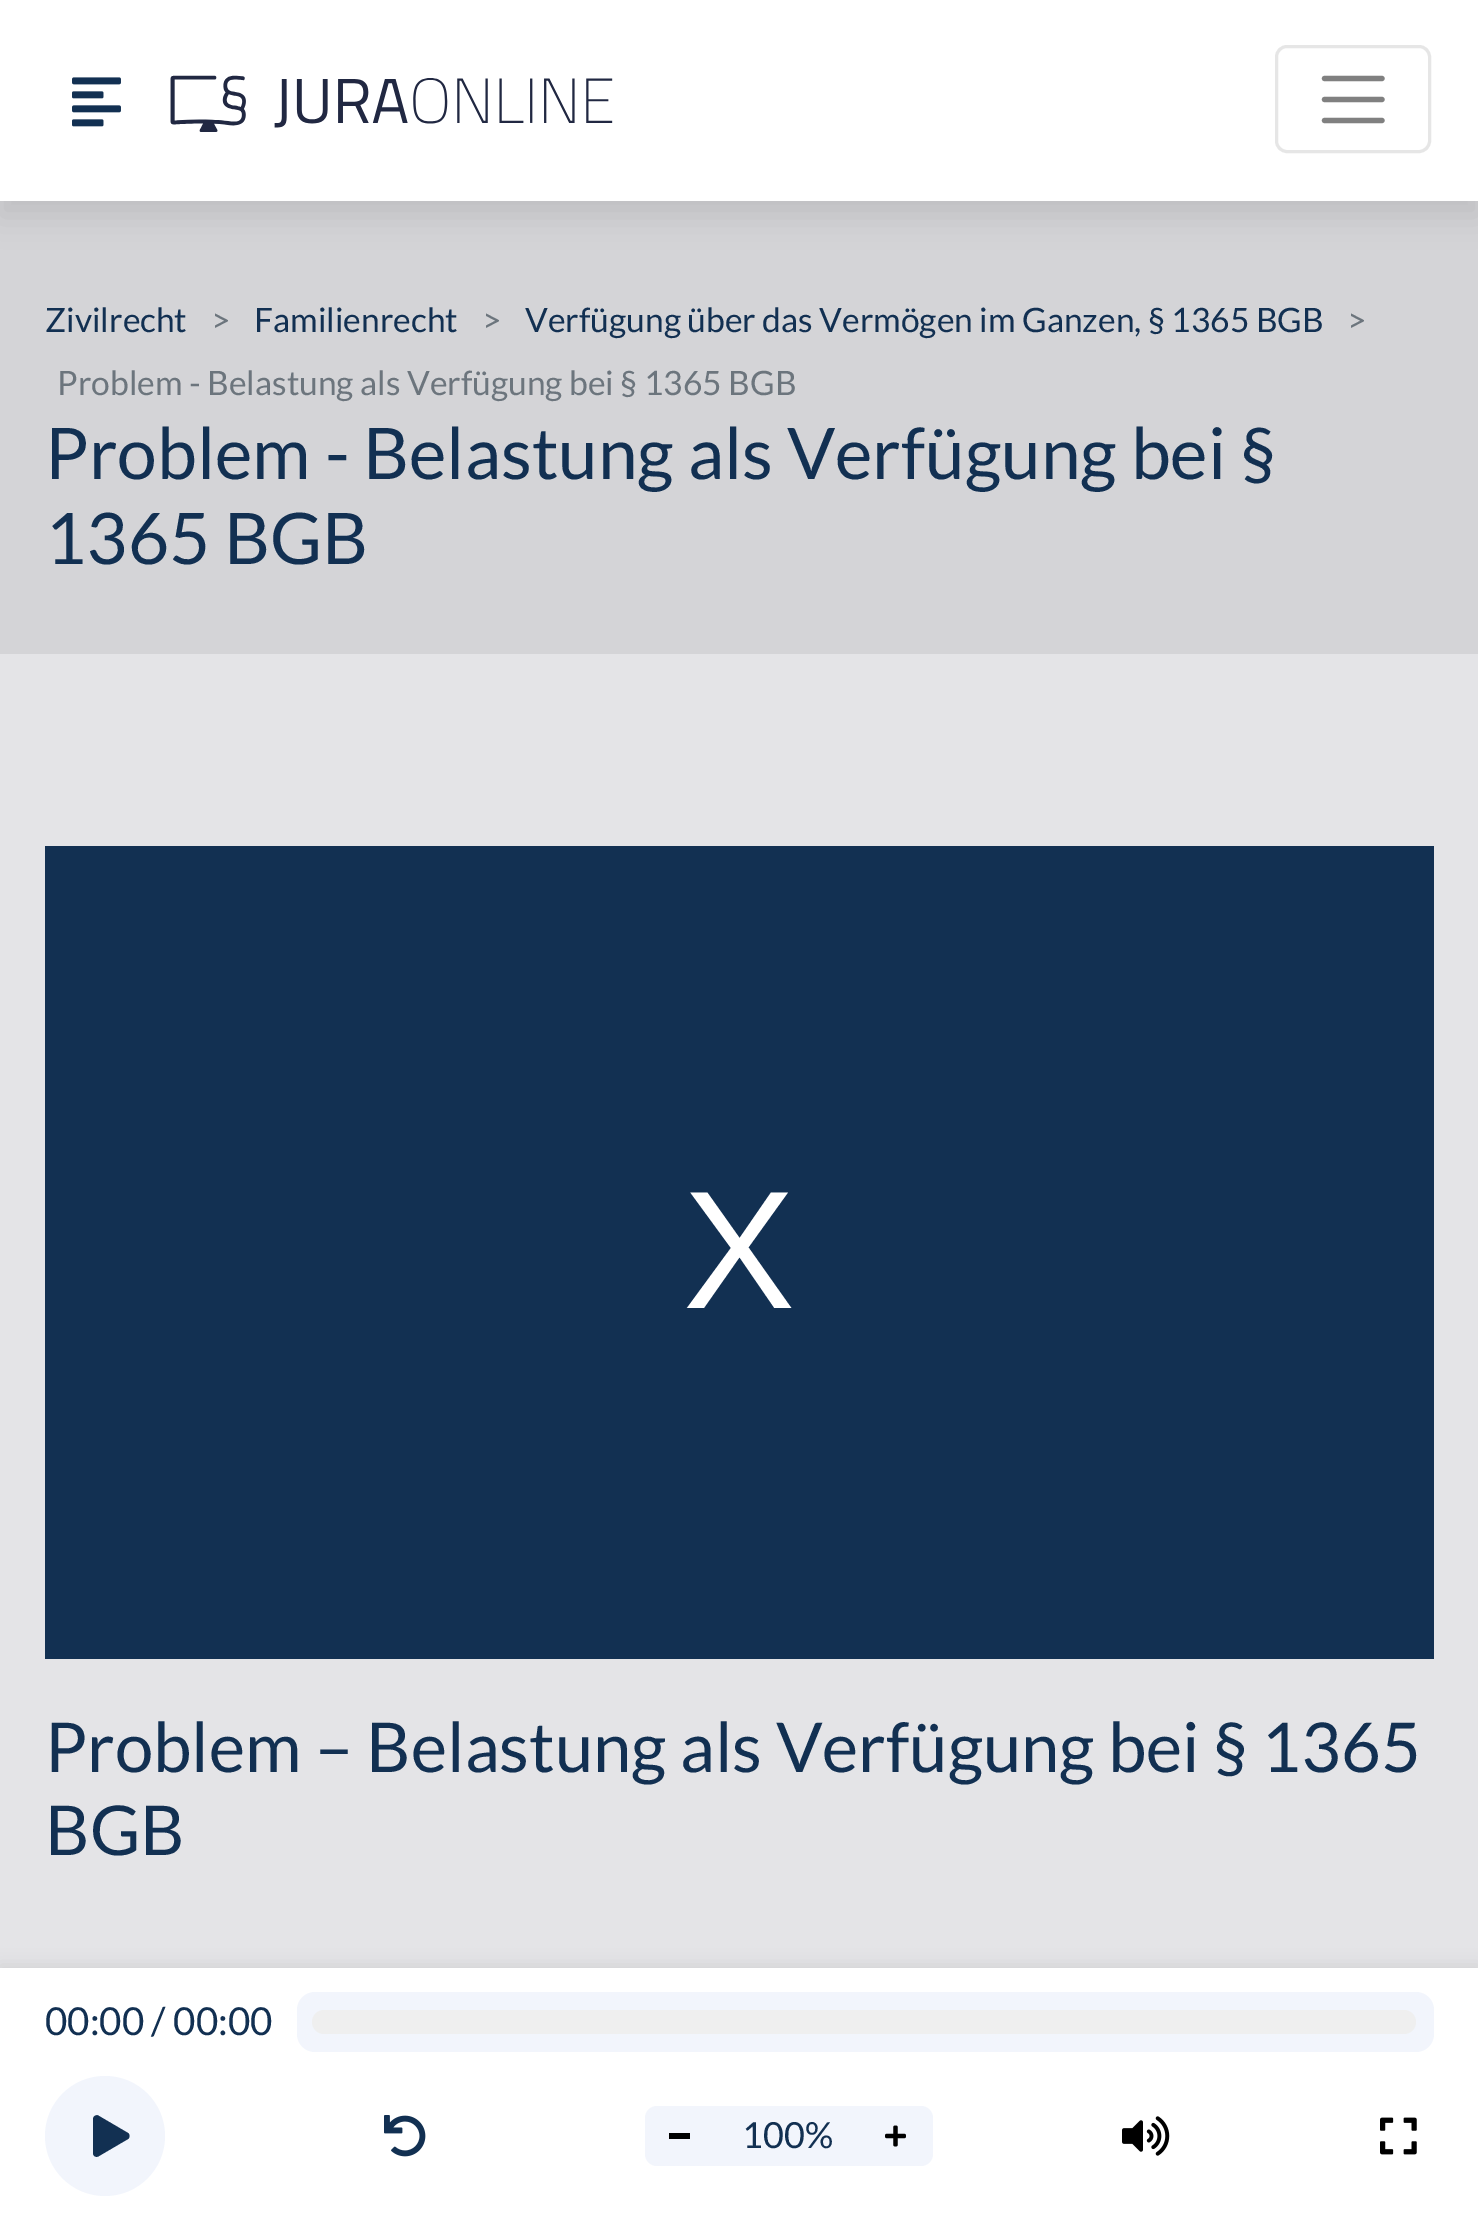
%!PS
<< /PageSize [1478 2220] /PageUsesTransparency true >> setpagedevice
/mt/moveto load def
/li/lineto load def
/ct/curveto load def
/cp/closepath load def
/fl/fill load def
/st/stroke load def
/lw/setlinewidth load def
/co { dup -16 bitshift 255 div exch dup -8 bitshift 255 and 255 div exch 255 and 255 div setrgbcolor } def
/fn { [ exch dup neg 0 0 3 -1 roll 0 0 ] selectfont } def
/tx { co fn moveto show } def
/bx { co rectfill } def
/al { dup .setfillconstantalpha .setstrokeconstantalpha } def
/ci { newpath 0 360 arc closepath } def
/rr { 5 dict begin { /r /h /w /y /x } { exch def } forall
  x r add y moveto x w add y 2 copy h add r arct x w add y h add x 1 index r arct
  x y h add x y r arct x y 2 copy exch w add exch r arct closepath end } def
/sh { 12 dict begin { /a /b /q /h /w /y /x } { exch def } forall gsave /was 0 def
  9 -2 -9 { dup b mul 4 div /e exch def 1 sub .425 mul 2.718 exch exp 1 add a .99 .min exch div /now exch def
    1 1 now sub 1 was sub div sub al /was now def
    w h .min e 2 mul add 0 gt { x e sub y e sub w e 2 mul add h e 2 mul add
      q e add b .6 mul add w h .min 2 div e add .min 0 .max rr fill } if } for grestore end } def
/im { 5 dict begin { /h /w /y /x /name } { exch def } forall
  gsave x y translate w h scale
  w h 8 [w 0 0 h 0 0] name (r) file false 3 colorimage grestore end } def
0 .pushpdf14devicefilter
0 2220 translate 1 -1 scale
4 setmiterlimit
0 0 1478 2220 16#E4E4E7 bx
0 201 1478 453 16#D4D4D7 bx
16#000000 co
0 15 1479 201 0 15 .1 sh
0 0 1478 201 16#FFFFFF bx
(media/1.raw) 72 77 49 50 im
(media/2.raw) 170 75 443 57 im
16#E6E6E6 co
3 lw
1276.5 46.5 153 105 10.5 rr st
16#808080 co
5.2 lw
1 setlinecap
1324.5 78.5 mt 1382 78.5 li 1324.5 99.5 mt 1382 99.5 li 1324.5 120.5 mt 1382 120.5 li st
45 846 1389 813 16#123052 bx
16#000000 co
0 1965 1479 252 0 7.5 .07 sh
0 1968 1478 252 16#FFFFFF bx
16#F2F5FC co
297 1992 1137 60 18 rr fl
16#EFEFEF co
312 2010 1104 24 12 rr fl
16#F2F5FC co
105 2136 60 ci fl
16#123052 co
128 2133 mt 99 2116 li 97 2114 93 2116 93 2119 ct 93 2153 li 93 2156 96 2158 99 2156 ct 128 2139 li 130 2138 130 2134 128 2133 ct cp fl
(media/3.raw) 384 2115 42 42 im
16#F2F5FC co
645 2106 288 60 12 rr fl
669 2133 21 6 16#000000 bx
(media/4.raw) 885 2125 21 22 im
(media/5.raw) 1122 2116 48 40 im
(media/6.raw) 1380 2117 37 38 im
(Zivilrecht) 45 332 /Lato-Regular 33.6 16#123052 tx
(>) 211 332 /Lato-Regular 33.6 16#6C757D tx
(Familienrecht) 254 332 /Lato-Regular 33.6 16#123052 tx
(>) 482 332 /Lato-Regular 33.6 16#6C757D tx
(Verfügung über das Vermögen im Ganzen, § 1365 BGB) 525 332 /Lato-Regular 33.6 16#123052 tx
(>) 1347 332 /Lato-Regular 33.6 16#6C757D tx
(Problem - Belastung als Verfügung bei § 1365 BGB) 57 395 /Lato-Regular 33.6 16#6C757D tx
(Problem - Belastung als Verfügung bei §) 45 479 /Lato-Regular 71.25 16#123052 tx
(1365 BGB) 45 564 /Lato-Regular 71.25 16#123052 tx
(X) 683 1308 /LiberationSans-Regular 168 16#FFFFFF tx
(00:00 / 00:00) 45 2035 /Lato-Regular 38.5 16#123052 tx
(100%) 742 2148 /Lato-Regular 36 16#123052 tx
(Problem – Belastung als Verfügung bei § 1365) 45 1772 /Lato-Regular 68.8 16#123052 tx
(BGB) 45 1855 /Lato-Regular 68.8 16#123052 tx
.poppdf14devicefilter showpage
